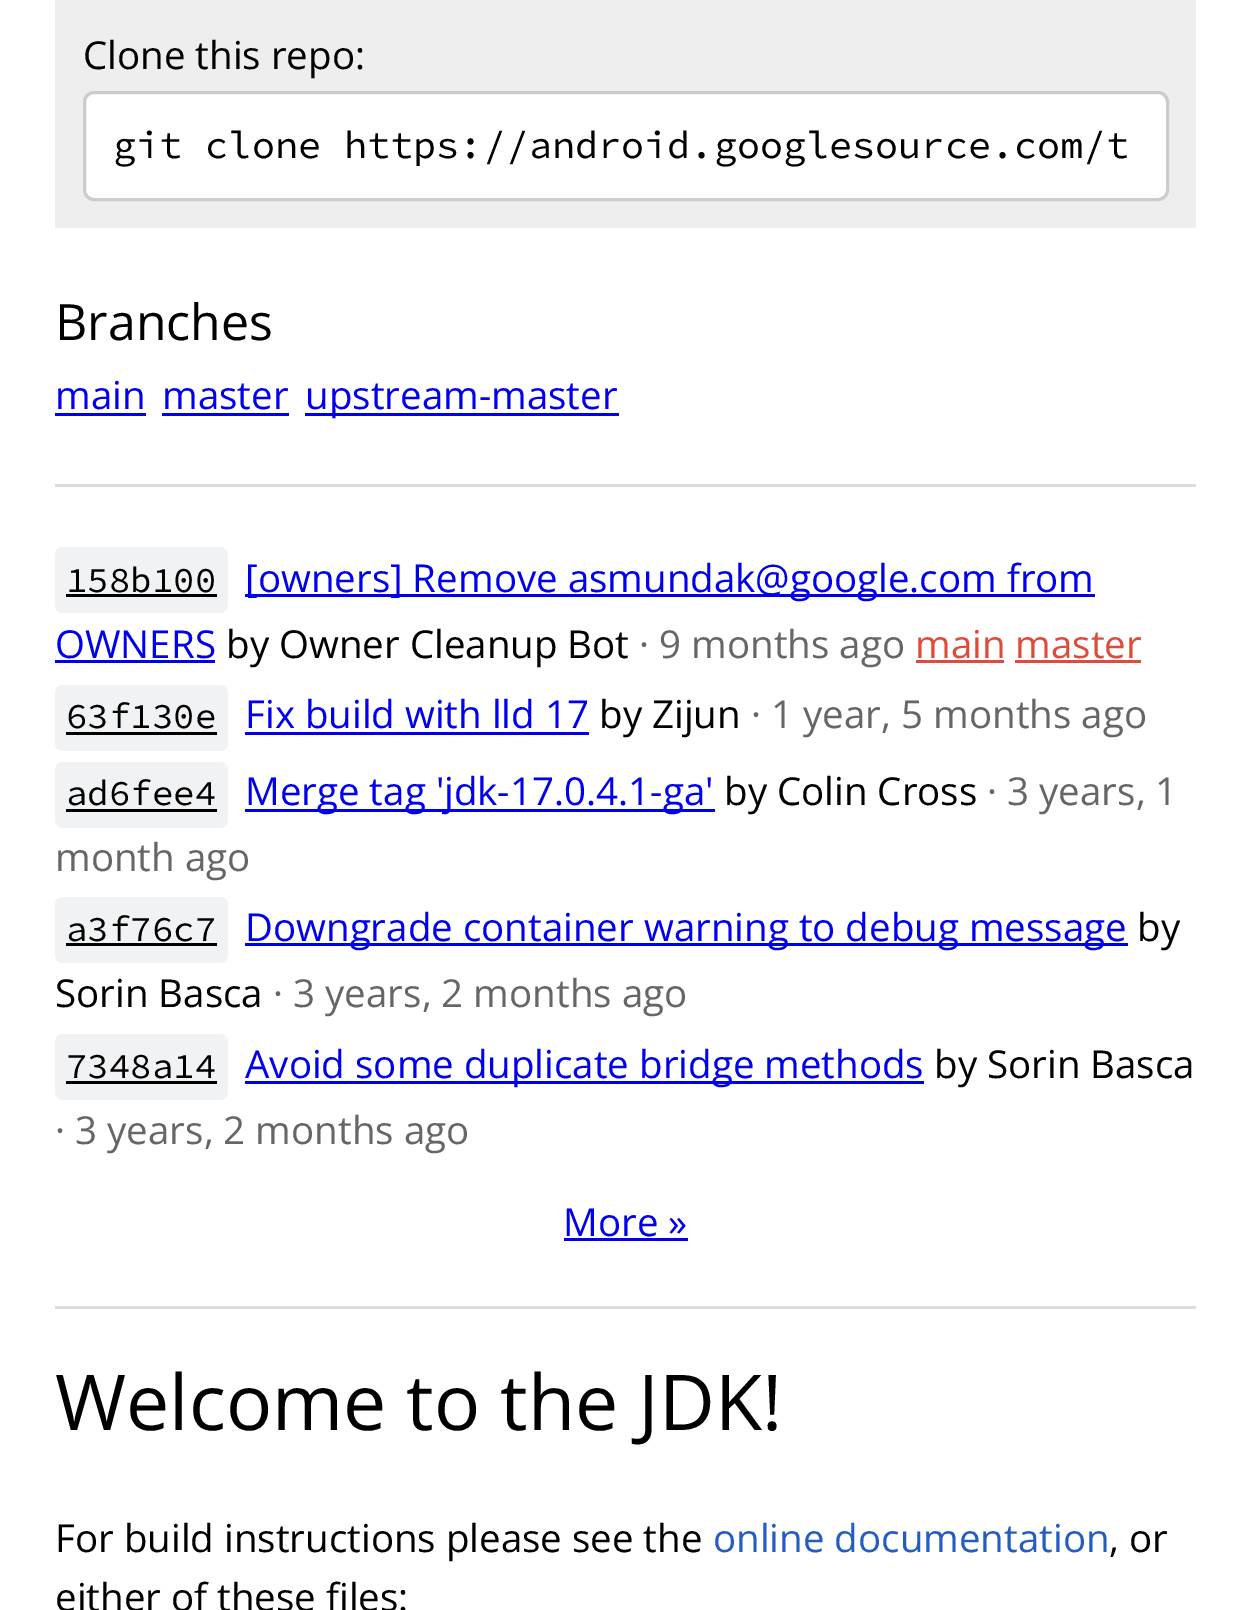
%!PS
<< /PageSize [1249 1610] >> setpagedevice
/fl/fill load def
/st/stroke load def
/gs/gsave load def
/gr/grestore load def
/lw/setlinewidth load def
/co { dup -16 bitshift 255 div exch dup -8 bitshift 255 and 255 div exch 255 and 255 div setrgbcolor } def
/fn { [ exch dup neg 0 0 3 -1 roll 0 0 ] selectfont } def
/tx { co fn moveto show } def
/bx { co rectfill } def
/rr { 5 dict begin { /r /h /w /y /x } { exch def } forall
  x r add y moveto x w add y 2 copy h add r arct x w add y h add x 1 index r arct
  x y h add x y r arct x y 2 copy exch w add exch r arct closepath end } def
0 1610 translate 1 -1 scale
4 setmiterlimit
0 0 1249 1610 16#FFFFFF bx
55 0 1141 228 16#EEEEEE bx
16#FFFFFF co
84.5 92.5 1083 107 9.5 rr gs fl gr
16#CCCCCC co
3 lw
st
55 484 1141 3 16#DDDDDD bx
55 413 91 3 16#0000EE bx
162 413 127 3 16#0000EE bx
305 413 314 3 16#0000EE bx
16#F1F2F3 co
55 547 173 66 8 rr fl
66 594 151 3 16#000000 bx
245 594 850 3 16#0000EE bx
55 660 160 3 16#0000EE bx
916 660 88 3 16#DD4B39 bx
1015 660 126 3 16#DD4B39 bx
16#F1F2F3 co
55 685 173 66 8 rr fl
66 732 151 3 16#000000 bx
245 732 344 3 16#0000EE bx
16#F1F2F3 co
55 762 173 66 8 rr fl
66 809 151 3 16#000000 bx
245 809 470 3 16#0000EE bx
16#F1F2F3 co
55 897 173 66 8 rr fl
66 943 151 3 16#000000 bx
245 943 883 3 16#0000EE bx
16#F1F2F3 co
55 1034 173 66 8 rr fl
66 1081 151 3 16#000000 bx
245 1081 679 3 16#0000EE bx
564 1238 124 3 16#0000EE bx
55 1306 1141 3 16#DDDDDD bx
(Clone this repo:) 83 69 /OpenSans-Regular 38.5 16#000000 tx
(git clone https://android.googlesource.com/t) 113 158 /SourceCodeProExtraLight-ExtraLight 38.5 16#000000 tx
(Branches) 55 340 /OpenSans-Regular 50 16#000000 tx
(main) 55 409 /OpenSans-Regular 38.5 16#0000EE tx
(master) 162 409 /OpenSans-Regular 38.5 16#0000EE tx
(upstream-master) 305 409 /OpenSans-Regular 38.5 16#0000EE tx
(158b100) 66 592 /SourceCodeProExtraLight-ExtraLight 35.75 16#000000 tx
([owners] Remove asmundak@google.com from) 245 592 /OpenSans-Regular 38.5 16#0000EE tx
(OWNERS) 55 658 /OpenSans-Regular 38.5 16#0000EE tx
(by Owner Cleanup Bot) 226 658 /OpenSans-Regular 38.5 16#000000 tx
(· 9 months ago) 639 658 /OpenSans-Regular 38.5 16#666666 tx
(main master) 915 658 /OpenSans-Regular 38.5 16#DD4B39 tx
(63f130e) 66 728 /SourceCodeProExtraLight-ExtraLight 35.75 16#000000 tx
(Fix build with lld 17) 245 728 /OpenSans-Regular 38.5 16#0000EE tx
(by Zijun) 599 728 /OpenSans-Regular 38.5 16#000000 tx
(· 1 year, 5 months ago) 751 728 /OpenSans-Regular 38.5 16#666666 tx
(ad6fee4) 66 805 /SourceCodeProExtraLight-ExtraLight 35.75 16#000000 tx
(Merge tag 'jdk-17.0.4.1-ga') 245 805 /OpenSans-Regular 38.5 16#0000EE tx
(by Colin Cross) 724 805 /OpenSans-Regular 38.5 16#000000 tx
(· 3 years, 1) 987 805 /OpenSans-Regular 38.5 16#666666 tx
(month ago) 55 871 /OpenSans-Regular 38.5 16#666666 tx
(a3f76c7) 66 941 /SourceCodeProExtraLight-ExtraLight 35.75 16#000000 tx
(Downgrade container warning to debug message) 245 941 /OpenSans-Regular 38.5 16#0000EE tx
(by) 1137 941 /OpenSans-Regular 38.5 16#000000 tx
(Sorin Basca) 55 1007 /OpenSans-Regular 38.5 16#000000 tx
(· 3 years, 2 months ago) 273 1007 /OpenSans-Regular 38.5 16#666666 tx
(7348a14) 66 1078 /SourceCodeProExtraLight-ExtraLight 35.75 16#000000 tx
(Avoid some duplicate bridge methods) 245 1078 /OpenSans-Regular 38.5 16#0000EE tx
(by Sorin Basca) 934 1078 /OpenSans-Regular 38.5 16#000000 tx
(· 3 years, 2 months ago) 55 1144 /OpenSans-Regular 38.5 16#666666 tx
(More ») 563 1236 /OpenSans-Regular 38.5 16#0000EE tx
(Welcome to the JDK!) 55 1430 /OpenSans-Regular 77 16#000000 tx
(For build instructions please see the) 55 1552 /OpenSans-Regular 38.5 16#000000 tx
(online documentation) 713 1552 /OpenSans-Regular 38.5 16#245DC1 tx
(, or) 1109 1552 /OpenSans-Regular 38.5 16#000000 tx
(either of these files:) 55 1611 /OpenSans-Regular 38.5 16#000000 tx
showpage
